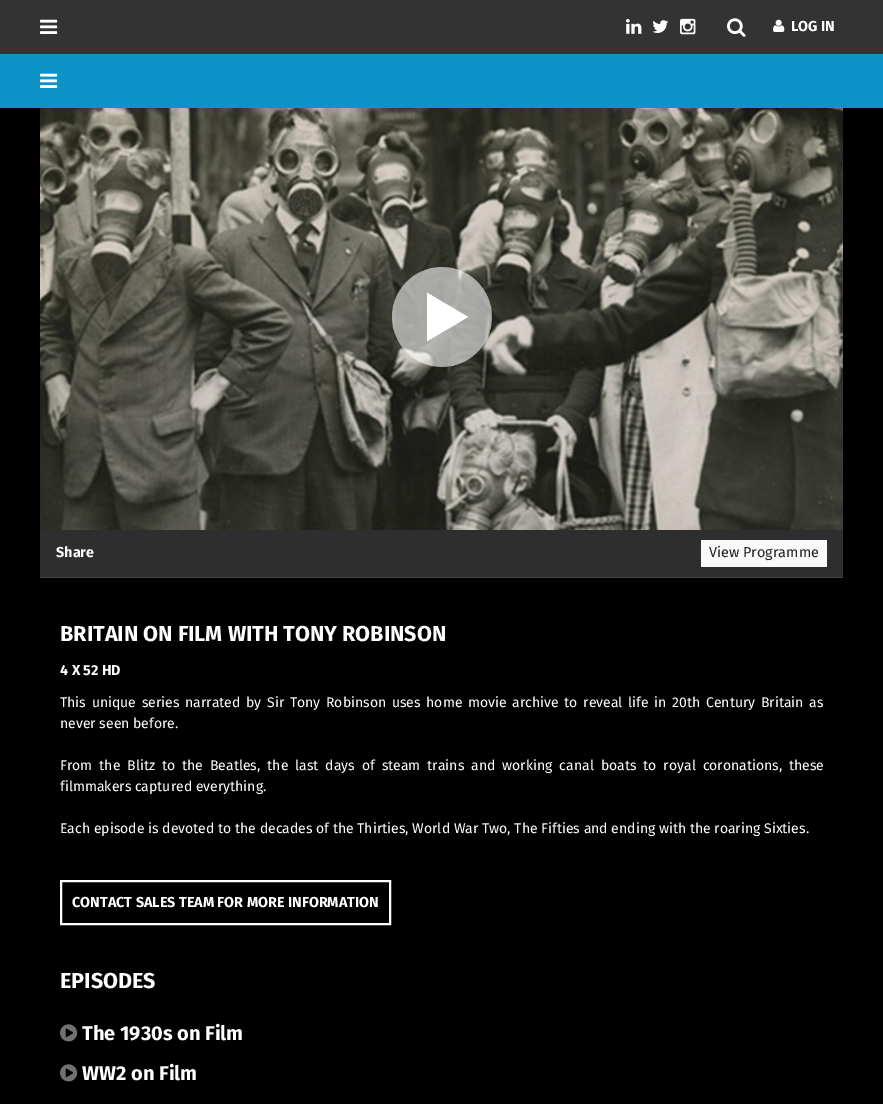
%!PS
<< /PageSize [883 1104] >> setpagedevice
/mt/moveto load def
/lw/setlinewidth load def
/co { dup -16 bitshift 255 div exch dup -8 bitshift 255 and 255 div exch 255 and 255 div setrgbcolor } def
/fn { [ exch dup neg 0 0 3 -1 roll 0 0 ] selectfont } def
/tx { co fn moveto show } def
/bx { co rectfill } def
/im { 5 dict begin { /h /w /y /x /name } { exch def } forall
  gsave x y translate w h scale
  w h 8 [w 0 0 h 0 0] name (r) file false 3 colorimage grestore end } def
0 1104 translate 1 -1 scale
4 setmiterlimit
0 0 883 1104 16#000000 bx
0 0 883 54 16#333333 bx
(media/1.raw) 40 19 18 15 im
(media/2.raw) 626 19 16 15 im
(media/3.raw) 652 20 17 13 im
(media/4.raw) 680 18 16 17 im
(media/5.raw) 727 18 19 19 im
(media/6.raw) 773 19 12 13 im
0 54 883 54 16#0D94C7 bx
(media/7.raw) 40 73 18 15 im
40 577 803 1 16#424242 bx
(media/8.raw) 40 108 803 422 im
(media/9.raw) 392 267 100 100 im
40 530 803 47 16#2E2E2E bx
701 540 126 27 16#F9F9F9 bx
16#FFFFFF co
2 lw
61 881 329 43 rectstroke
(media/10.raw) 60 1024 18 18 im
(media/10.raw) 60 1064 18 18 im
(LOG IN) 791 31 /FiraSans-Bold 14.4 16#FFFFFF tx
(Share) 56 557 /FiraSans-Bold 14.4 16#FFFFFF tx
(View Programme) 709 557 /FiraSans-Regular 14.4 16#212121 tx
(BRITAIN ON FILM WITH TONY ROBINSON) 60 641 /FiraSans-Bold 21.6 16#FFFFFF tx
(4 X 52 HD) 60 675 /FiraSans-Bold 14.4 16#FFFFFF tx
/FiraSans-Regular 14 fn
60 707 mt 2 0 32 (This unique series narrated by Sir Tony Robinson uses home movie archive to reveal life in 20th Century Britain as) widthshow
(never seen before.) 60 728 /FiraSans-Regular 14 16#FFFFFF tx
60 770 mt 3.25 0 32 (From the Blitz to the Beatles, the last days of steam trains and working canal boats to royal coronations, these) widthshow
(filmmakers captured everything.) 60 791 /FiraSans-Regular 14 16#FFFFFF tx
(Each episode is devoted to the decades of the Thirties, World War Two, The Fifties and ending with the roaring Sixties.) 60 833 /FiraSans-Regular 14 16#FFFFFF tx
(CONTACT SALES TEAM FOR MORE INFORMATION) 72 907 /FiraSans-Bold 14.4 16#FFFFFF tx
(EPISODES) 60 988 /FiraSans-Bold 21.6 16#FFFFFF tx
(The 1930s on Film) 82 1040 /FiraSans-Bold 20 16#FFFFFF tx
(WW2 on Film) 82 1080 /FiraSans-Bold 20 16#FFFFFF tx
showpage
